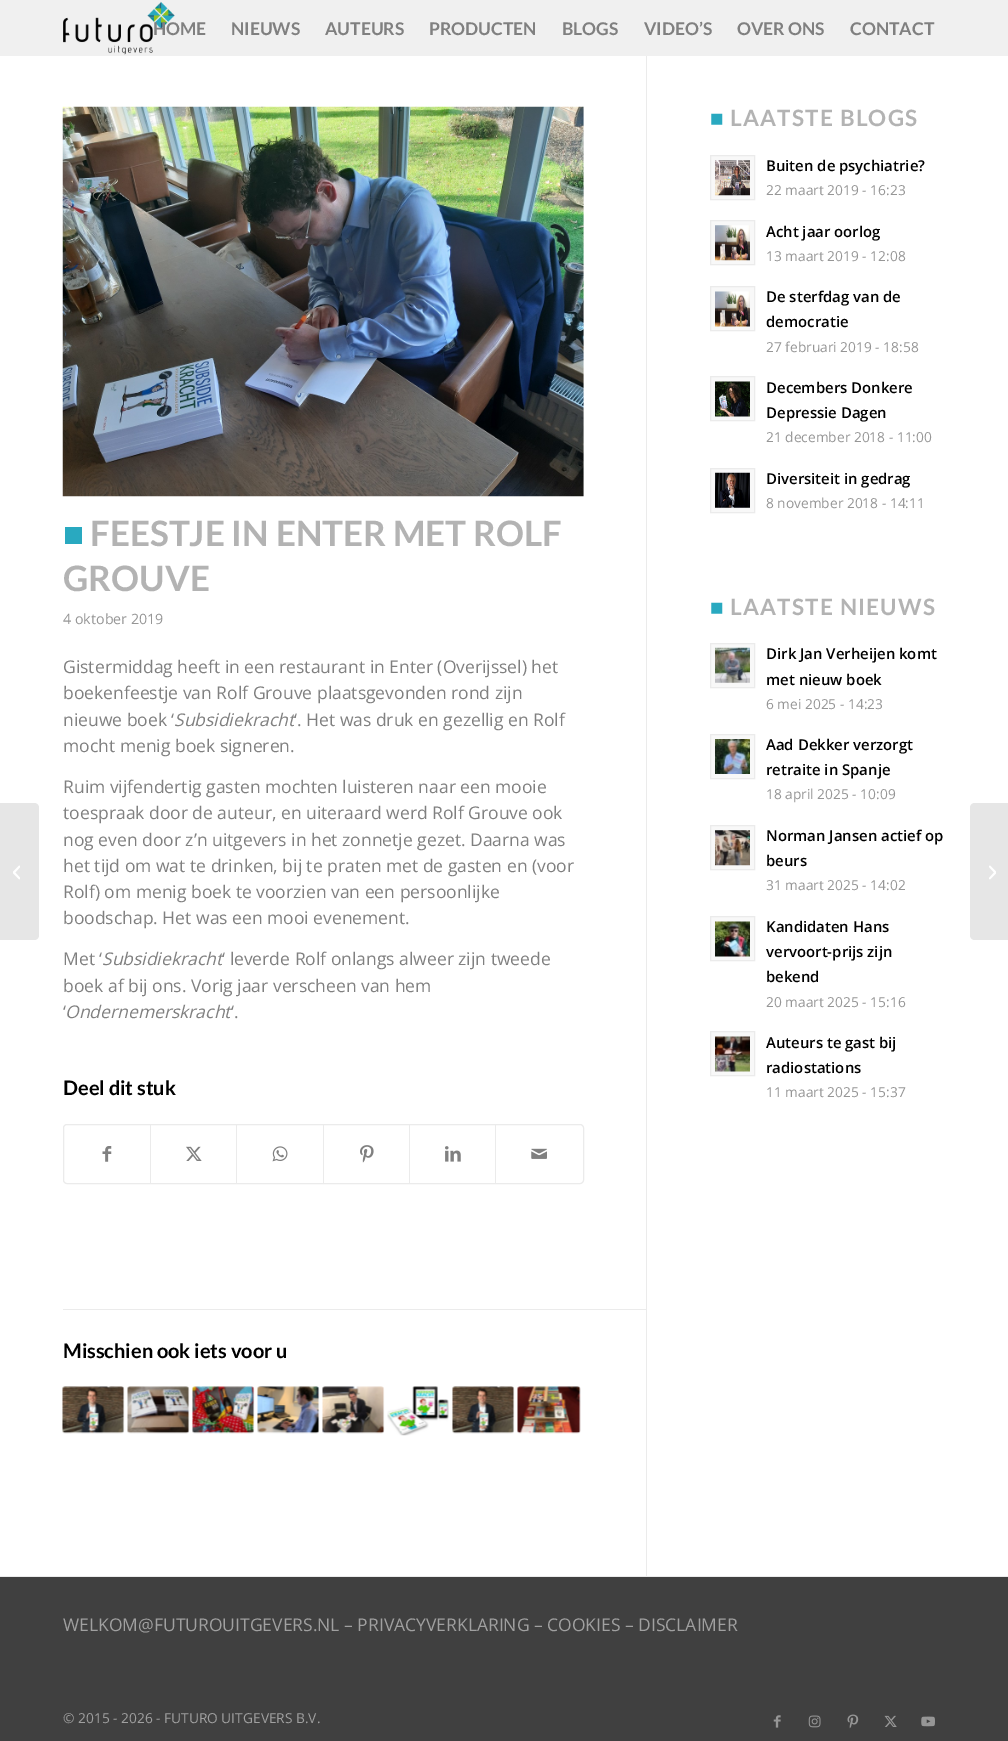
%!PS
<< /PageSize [1008 1741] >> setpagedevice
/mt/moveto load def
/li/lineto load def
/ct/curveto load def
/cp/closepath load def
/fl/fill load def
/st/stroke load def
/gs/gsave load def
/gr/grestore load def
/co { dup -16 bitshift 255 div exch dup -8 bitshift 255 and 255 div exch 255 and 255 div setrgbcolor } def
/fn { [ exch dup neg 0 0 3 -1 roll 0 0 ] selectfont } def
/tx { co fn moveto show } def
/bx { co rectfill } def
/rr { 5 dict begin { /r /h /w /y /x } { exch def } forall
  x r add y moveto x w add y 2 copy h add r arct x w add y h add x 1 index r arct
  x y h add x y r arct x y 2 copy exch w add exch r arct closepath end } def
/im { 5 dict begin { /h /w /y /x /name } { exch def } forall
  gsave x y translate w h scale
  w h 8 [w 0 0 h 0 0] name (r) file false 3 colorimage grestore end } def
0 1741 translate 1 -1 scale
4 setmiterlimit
0 0 1008 1741 16#FFFFFF bx
0 0 1008 56 16#F0F0F0 bx
(media/1.raw) 63 1 112 54 im
16#E6E6E6 co
0 803 mt 34 803 li 37 803 39 805 39 808 ct 39 935 li 39 938 37 940 34 940 ct 0 940 li cp fl
(media/2.raw) 13 865 7 15 im
646 56 1 1520 16#EBEBEB bx
(media/3.raw) 62 106 522 391 im
63.5 1124.5 520 59 3.5 rr st
(media/4.raw) 102 1146 10 16 im
150 1125 1 58 16#EBEBEB bx
(media/5.raw) 186 1146 16 15 im
236 1125 1 58 16#EBEBEB bx
(media/6.raw) 272 1146 16 16 im
323 1125 1 58 16#EBEBEB bx
(media/7.raw) 360 1145 14 18 im
409 1125 1 58 16#EBEBEB bx
(media/8.raw) 445 1146 16 16 im
495 1125 1 58 16#EBEBEB bx
(media/9.raw) 531 1148 16 11 im
63 1309 583 1 16#EBEBEB bx
(media/10.raw) 62 1386 63 48 im
(media/11.raw) 127 1386 63 48 im
(media/12.raw) 192 1386 63 48 im
(media/13.raw) 257 1386 63 48 im
(media/14.raw) 322 1386 63 48 im
(media/15.raw) 387 1386 62 50 im
(media/10.raw) 452 1386 63 48 im
(media/16.raw) 517 1386 64 48 im
16#F8F8F8 co
710.5 155.5 mt 754.5 155.5 li 754.5 199.5 li 710.5 199.5 li cp gs fl gr
16#EBEBEB co
st
(media/17.raw) 715 160 35 36 im
16#F8F8F8 co
710.5 220.5 mt 754.5 220.5 li 754.5 264.5 li 710.5 264.5 li cp gs fl gr
16#EBEBEB co
st
(media/18.raw) 715 225 35 36 im
16#F8F8F8 co
710.5 286.5 mt 754.5 286.5 li 754.5 330.5 li 710.5 330.5 li cp gs fl gr
16#EBEBEB co
st
(media/19.raw) 715 291 35 36 im
16#F8F8F8 co
710.5 376.5 mt 754.5 376.5 li 754.5 420.5 li 710.5 420.5 li cp gs fl gr
16#EBEBEB co
st
(media/20.raw) 715 381 35 36 im
16#F8F8F8 co
710.5 468.5 mt 754.5 468.5 li 754.5 512.5 li 710.5 512.5 li cp gs fl gr
16#EBEBEB co
st
(media/21.raw) 715 472 35 36 im
16#F8F8F8 co
710.5 643.5 mt 754.5 643.5 li 754.5 687.5 li 710.5 687.5 li cp gs fl gr
16#EBEBEB co
st
(media/22.raw) 715 647 35 36 im
16#F8F8F8 co
710.5 734.5 mt 754.5 734.5 li 754.5 778.5 li 710.5 778.5 li cp gs fl gr
16#EBEBEB co
st
(media/23.raw) 715 739 35 35 im
16#F8F8F8 co
710.5 825.5 mt 754.5 825.5 li 754.5 869.5 li 710.5 869.5 li cp gs fl gr
16#EBEBEB co
st
(media/24.raw) 715 830 35 36 im
16#F8F8F8 co
710.5 916.5 mt 754.5 916.5 li 754.5 960.5 li 710.5 960.5 li cp gs fl gr
16#EBEBEB co
st
(media/25.raw) 715 921 35 36 im
16#F8F8F8 co
710.5 1031.5 mt 754.5 1031.5 li 754.5 1075.5 li 710.5 1075.5 li cp gs fl gr
16#EBEBEB co
st
(media/26.raw) 715 1036 35 36 im
0 1577 1008 164 16#404040 bx
0 1576 1008 1 16#EBEBEB bx
(media/27.raw) 773 1715 8 13 im
(media/28.raw) 808 1715 13 13 im
(media/29.raw) 847 1714 12 15 im
(media/30.raw) 884 1715 13 12 im
(media/31.raw) 921 1716 14 11 im
16#E6E6E6 co
975 803 mt 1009 803 li 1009 940 li 975 940 li 972 940 970 938 970 935 ct 970 808 li 970 805 972 803 975 803 ct cp fl
(media/32.raw) 989 865 7 15 im
(HOME) 153 35 /Lato-Bold 17.5 16#808080 tx
(NIEUWS) 231 35 /Lato-Bold 17.5 16#808080 tx
(AUTEURS) 325 35 /Lato-Bold 17.5 16#808080 tx
(PRODUCTEN) 429 35 /Lato-Bold 17.5 16#808080 tx
(BLOGS) 562 35 /Lato-Bold 17.5 16#808080 tx
(VIDEO’S) 644 35 /Lato-Bold 17.5 16#808080 tx
(OVER ONS) 737 35 /Lato-Bold 17.5 16#808080 tx
(CONTACT) 850 35 /Lato-Bold 17.5 16#808080 tx
(■) 63 546 /LiberationSans-Bold 35 16#29A9C0 tx
(FEESTJE IN ENTER MET ROLF) 90 546 /Lato-Bold 35 16#B3B3B3 tx
(GROUVE) 63 591 /Lato-Bold 35 16#B3B3B3 tx
(4 oktober 2019) 63 624 /OpenSans-Regular 14.25 16#969696 tx
(Gistermiddag heeft in een restaurant in Enter \(Overijssel\) het) 63 673 /OpenSans-Regular 17.5 16#808080 tx
(boekenfeestje van Rolf Grouve plaatsgevonden rond zijn) 63 699 /OpenSans-Regular 17.5 16#808080 tx
(nieuwe boek ‘) 63 726 /OpenSans-Regular 17.5 16#808080 tx
(Subsidiekracht) 174 726 /OpenSans-Italic 17.5 16#808080 tx
(‘. Het was druk en gezellig en Rolf) 294 726 /OpenSans-Regular 17.5 16#808080 tx
(mocht menig boek signeren.) 63 752 /OpenSans-Regular 17.5 16#808080 tx
(Ruim vijfendertig gasten mochten luisteren naar een mooie) 63 793 /OpenSans-Regular 17.5 16#808080 tx
(toespraak door de auteur, en uiteraard werd Rolf Grouve ook) 63 819 /OpenSans-Regular 17.5 16#808080 tx
(nog even door z’n uitgevers in het zonnetje gezet. Daarna was) 63 846 /OpenSans-Regular 17.5 16#808080 tx
(het tijd om wat te drinken, bij te praten met de gasten en \(voor) 63 872 /OpenSans-Regular 17.5 16#808080 tx
(Rolf\) om menig boek te voorzien van een persoonlijke) 63 898 /OpenSans-Regular 17.5 16#808080 tx
(boodschap. Het was een mooi evenement.) 63 924 /OpenSans-Regular 17.5 16#808080 tx
(Met ‘) 63 965 /OpenSans-Regular 17.5 16#808080 tx
(Subsidiekracht) 102 965 /OpenSans-Italic 17.5 16#808080 tx
(‘ leverde Rolf onlangs alweer zijn tweede) 222 965 /OpenSans-Regular 17.5 16#808080 tx
(boek af bij ons. Vorig jaar verscheen van hem) 63 992 /OpenSans-Regular 17.5 16#808080 tx
(‘) 63 1018 /OpenSans-Regular 17.5 16#808080 tx
(Ondernemerskracht) 65 1018 /OpenSans-Italic 17.5 16#808080 tx
(‘.) 231 1018 /OpenSans-Regular 17.5 16#808080 tx
(Deel dit stuk) 63 1095 /Lato-Bold 20 16#000000 tx
(Misschien ook iets voor u) 63 1358 /Lato-Bold 20 16#000000 tx
/LiberationSans-Bold 22.5 fn
16#29A9C0 co
710 126 mt 1.25 0 (■) ashow
/Lato-Bold 22.5 fn
16#B3B3B3 co
730 126 mt 1.25 0 (LAATSTE BLOGS) ashow
(Buiten de psychiatrie?) 766 171 /OpenSans-SemiBold 14.9 16#000000 tx
(22 maart 2019 - 16:23) 766 195 /OpenSans-Regular 13.75 16#969696 tx
(Acht jaar oorlog) 766 237 /OpenSans-SemiBold 14.9 16#000000 tx
(13 maart 2019 - 12:08) 766 261 /OpenSans-Regular 13.75 16#969696 tx
(De sterfdag van de) 766 302 /OpenSans-SemiBold 14.9 16#000000 tx
(democratie) 766 327 /OpenSans-SemiBold 14.9 16#000000 tx
(27 februari 2019 - 18:58) 766 352 /OpenSans-Regular 13.75 16#969696 tx
(Decembers Donkere) 766 393 /OpenSans-SemiBold 14.9 16#000000 tx
(Depressie Dagen) 766 418 /OpenSans-SemiBold 14.9 16#000000 tx
(21 december 2018 - 11:00) 766 442 /OpenSans-Regular 13.75 16#969696 tx
(Diversiteit in gedrag) 766 484 /OpenSans-SemiBold 14.9 16#000000 tx
(8 november 2018 - 14:11) 766 508 /OpenSans-Regular 13.75 16#969696 tx
/LiberationSans-Bold 22.5 fn
16#29A9C0 co
710 615 mt 1.25 0 (■) ashow
/Lato-Bold 22.5 fn
16#B3B3B3 co
730 615 mt 1.25 0 (LAATSTE NIEUWS) ashow
(Dirk Jan Verheijen komt) 766 659 /OpenSans-SemiBold 14.9 16#000000 tx
(met nieuw boek) 766 685 /OpenSans-SemiBold 14.9 16#000000 tx
(6 mei 2025 - 14:23) 766 709 /OpenSans-Regular 13.75 16#969696 tx
(Aad Dekker verzorgt) 766 750 /OpenSans-SemiBold 14.9 16#000000 tx
(retraite in Spanje) 766 775 /OpenSans-SemiBold 14.9 16#000000 tx
(18 april 2025 - 10:09) 766 799 /OpenSans-Regular 13.75 16#969696 tx
(Norman Jansen actief op) 766 841 /OpenSans-SemiBold 14.9 16#000000 tx
(beurs) 766 866 /OpenSans-SemiBold 14.9 16#000000 tx
(31 maart 2025 - 14:02) 766 890 /OpenSans-Regular 13.75 16#969696 tx
(Kandidaten Hans) 766 932 /OpenSans-SemiBold 14.9 16#000000 tx
(vervoort-prijs zijn) 766 957 /OpenSans-SemiBold 14.9 16#000000 tx
(bekend) 766 982 /OpenSans-SemiBold 14.9 16#000000 tx
(20 maart 2025 - 15:16) 766 1007 /OpenSans-Regular 13.75 16#969696 tx
(Auteurs te gast bij) 766 1048 /OpenSans-SemiBold 14.9 16#000000 tx
(radiostations) 766 1073 /OpenSans-SemiBold 14.9 16#000000 tx
(11 maart 2025 - 15:37) 766 1097 /OpenSans-Regular 13.75 16#969696 tx
(WELKOM@FUTUROUITGEVERS.NL – PRIVACYVERKLARING – COOKIES – DISCLAIMER) 63 1631 /OpenSans-Regular 17.5 16#A0A0A0 tx
(© 2015 - 2026 - FUTURO UITGEVERS B.V.) 63 1723 /OpenSans-Regular 13.75 16#A0A0A0 tx
showpage
